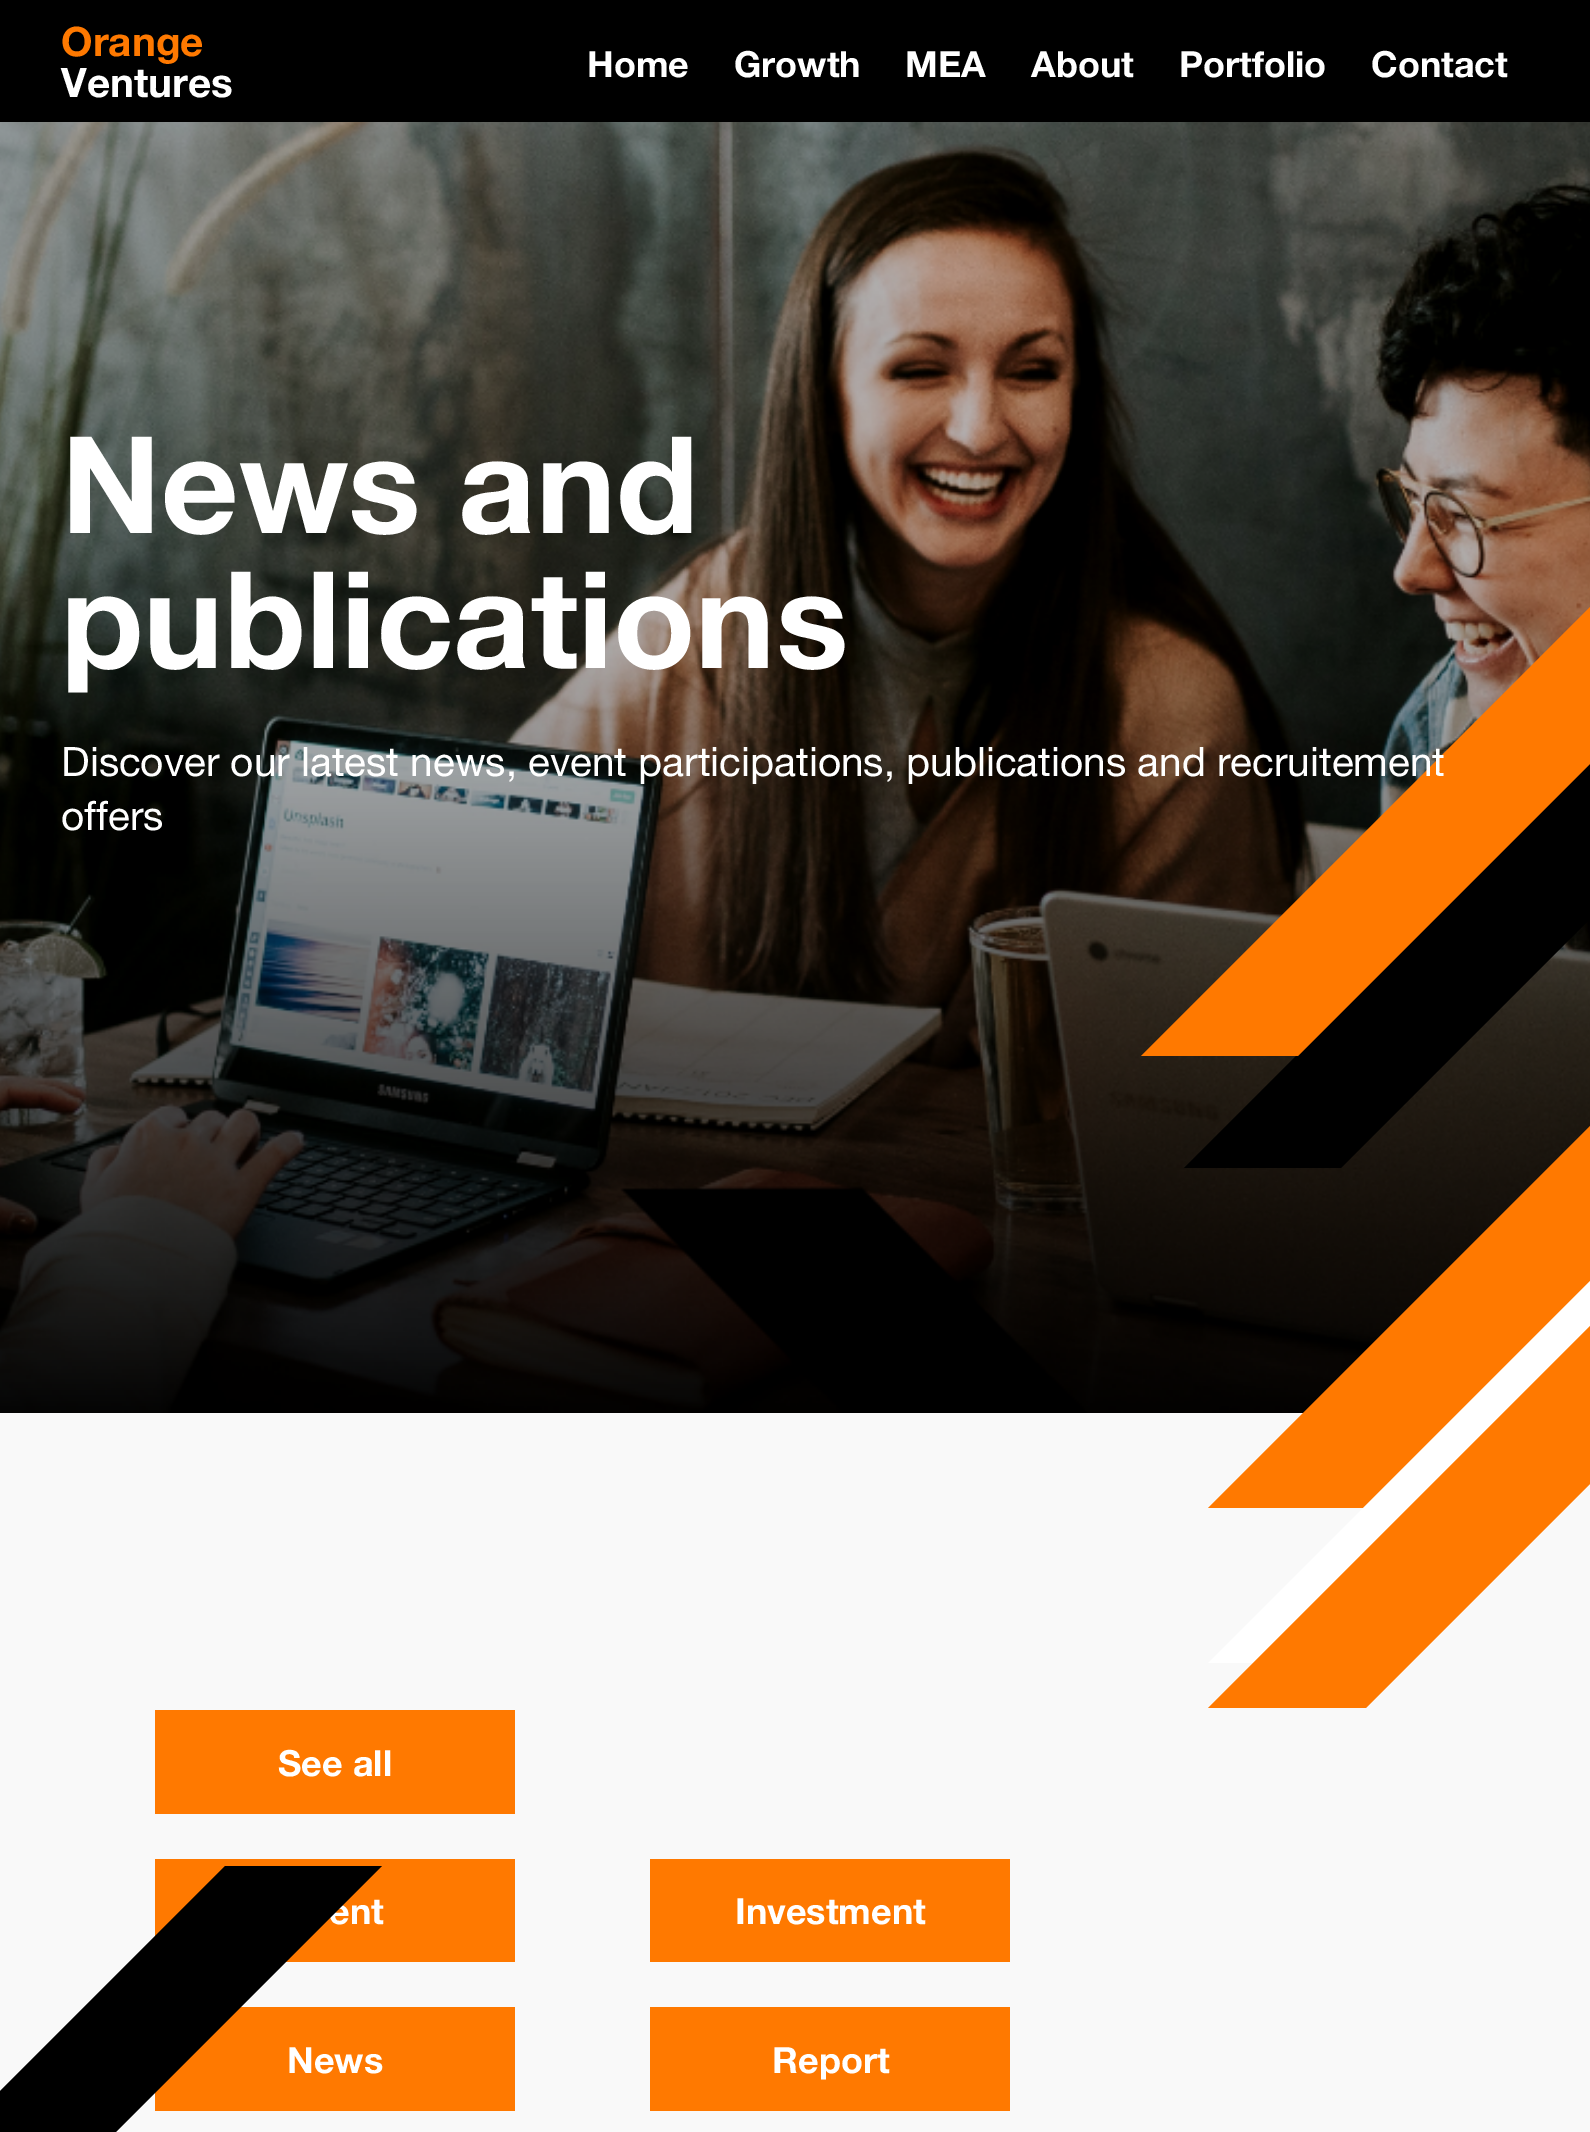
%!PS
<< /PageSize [1590 2132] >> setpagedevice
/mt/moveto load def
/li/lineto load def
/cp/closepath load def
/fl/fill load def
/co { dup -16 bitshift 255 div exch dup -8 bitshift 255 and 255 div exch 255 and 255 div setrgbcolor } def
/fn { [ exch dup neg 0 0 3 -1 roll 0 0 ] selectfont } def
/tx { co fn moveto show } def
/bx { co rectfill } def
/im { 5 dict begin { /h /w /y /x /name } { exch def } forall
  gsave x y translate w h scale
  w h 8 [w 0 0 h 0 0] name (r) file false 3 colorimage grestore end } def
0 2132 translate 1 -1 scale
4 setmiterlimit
0 0 1590 2132 16#F9F9F9 bx
0 0 1590 122 16#000000 bx
(media/1.raw) 0 122 1590 1291 im
16#FF7900 co
1366 1508 mt 1208 1508 li 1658 1058 li 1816 1058 li cp fl
16#FFFFFF co
1366 1663 mt 1208 1663 li 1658 1213 li 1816 1213 li cp fl
16#000000 co
1341 1168 mt 1184 1168 li 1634 718 li 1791 718 li cp fl
16#FF7900 co
1298 1056 mt 1141 1056 li 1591 606 li 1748 606 li cp fl
1366 1708 mt 1208 1708 li 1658 1258 li 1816 1258 li cp fl
155 1710 360 104 16#FF7900 bx
155 1859 360 103 16#FF7900 bx
650 1859 360 103 16#FF7900 bx
155 2007 360 104 16#FF7900 bx
650 2007 360 104 16#FF7900 bx
(Orange) 61 56 /HelveticaNeue-Bold 40.5 16#FF7900 tx
(Ventures) 61 97 /HelveticaNeue-Bold 40.5 16#FFFFFF tx
(Home) 587 77 /HelveticaNeue-Bold 36 16#FFFFFF tx
(Growth) 734 77 /HelveticaNeue-Bold 36 16#FFFFFF tx
(MEA) 905 77 /HelveticaNeue-Bold 36 16#FFFFFF tx
(About) 1031 77 /HelveticaNeue-Bold 36 16#FFFFFF tx
(Portfolio) 1179 77 /HelveticaNeue-Bold 36 16#FFFFFF tx
(Contact) 1371 77 /HelveticaNeue-Bold 36 16#FFFFFF tx
(News and) 61 533 /HelveticaNeue-Bold 135 16#FFFFFF tx
(publications) 61 668 /HelveticaNeue-Bold 135 16#FFFFFF tx
(Discover our latest news, event participations, publications and recruitement) 61 776 /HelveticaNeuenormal-Regular 40.5 16#FFFFFF tx
(offers) 61 830 /HelveticaNeuenormal-Regular 40.5 16#FFFFFF tx
(See all) 278 1776 /HelveticaNeue-Bold 36 16#FFFFFF tx
(ent) 329 1924 /HelveticaNeue-Bold 36 16#FFFFFF tx
(Investment) 735 1924 /HelveticaNeue-Bold 36 16#FFFFFF tx
(News) 287 2073 /HelveticaNeue-Bold 36 16#FFFFFF tx
16#000000 co
-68 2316 mt -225 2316 li 225 1866 li 382 1866 li cp fl
(Report) 772 2073 /HelveticaNeue-Bold 36 16#FFFFFF tx
showpage
